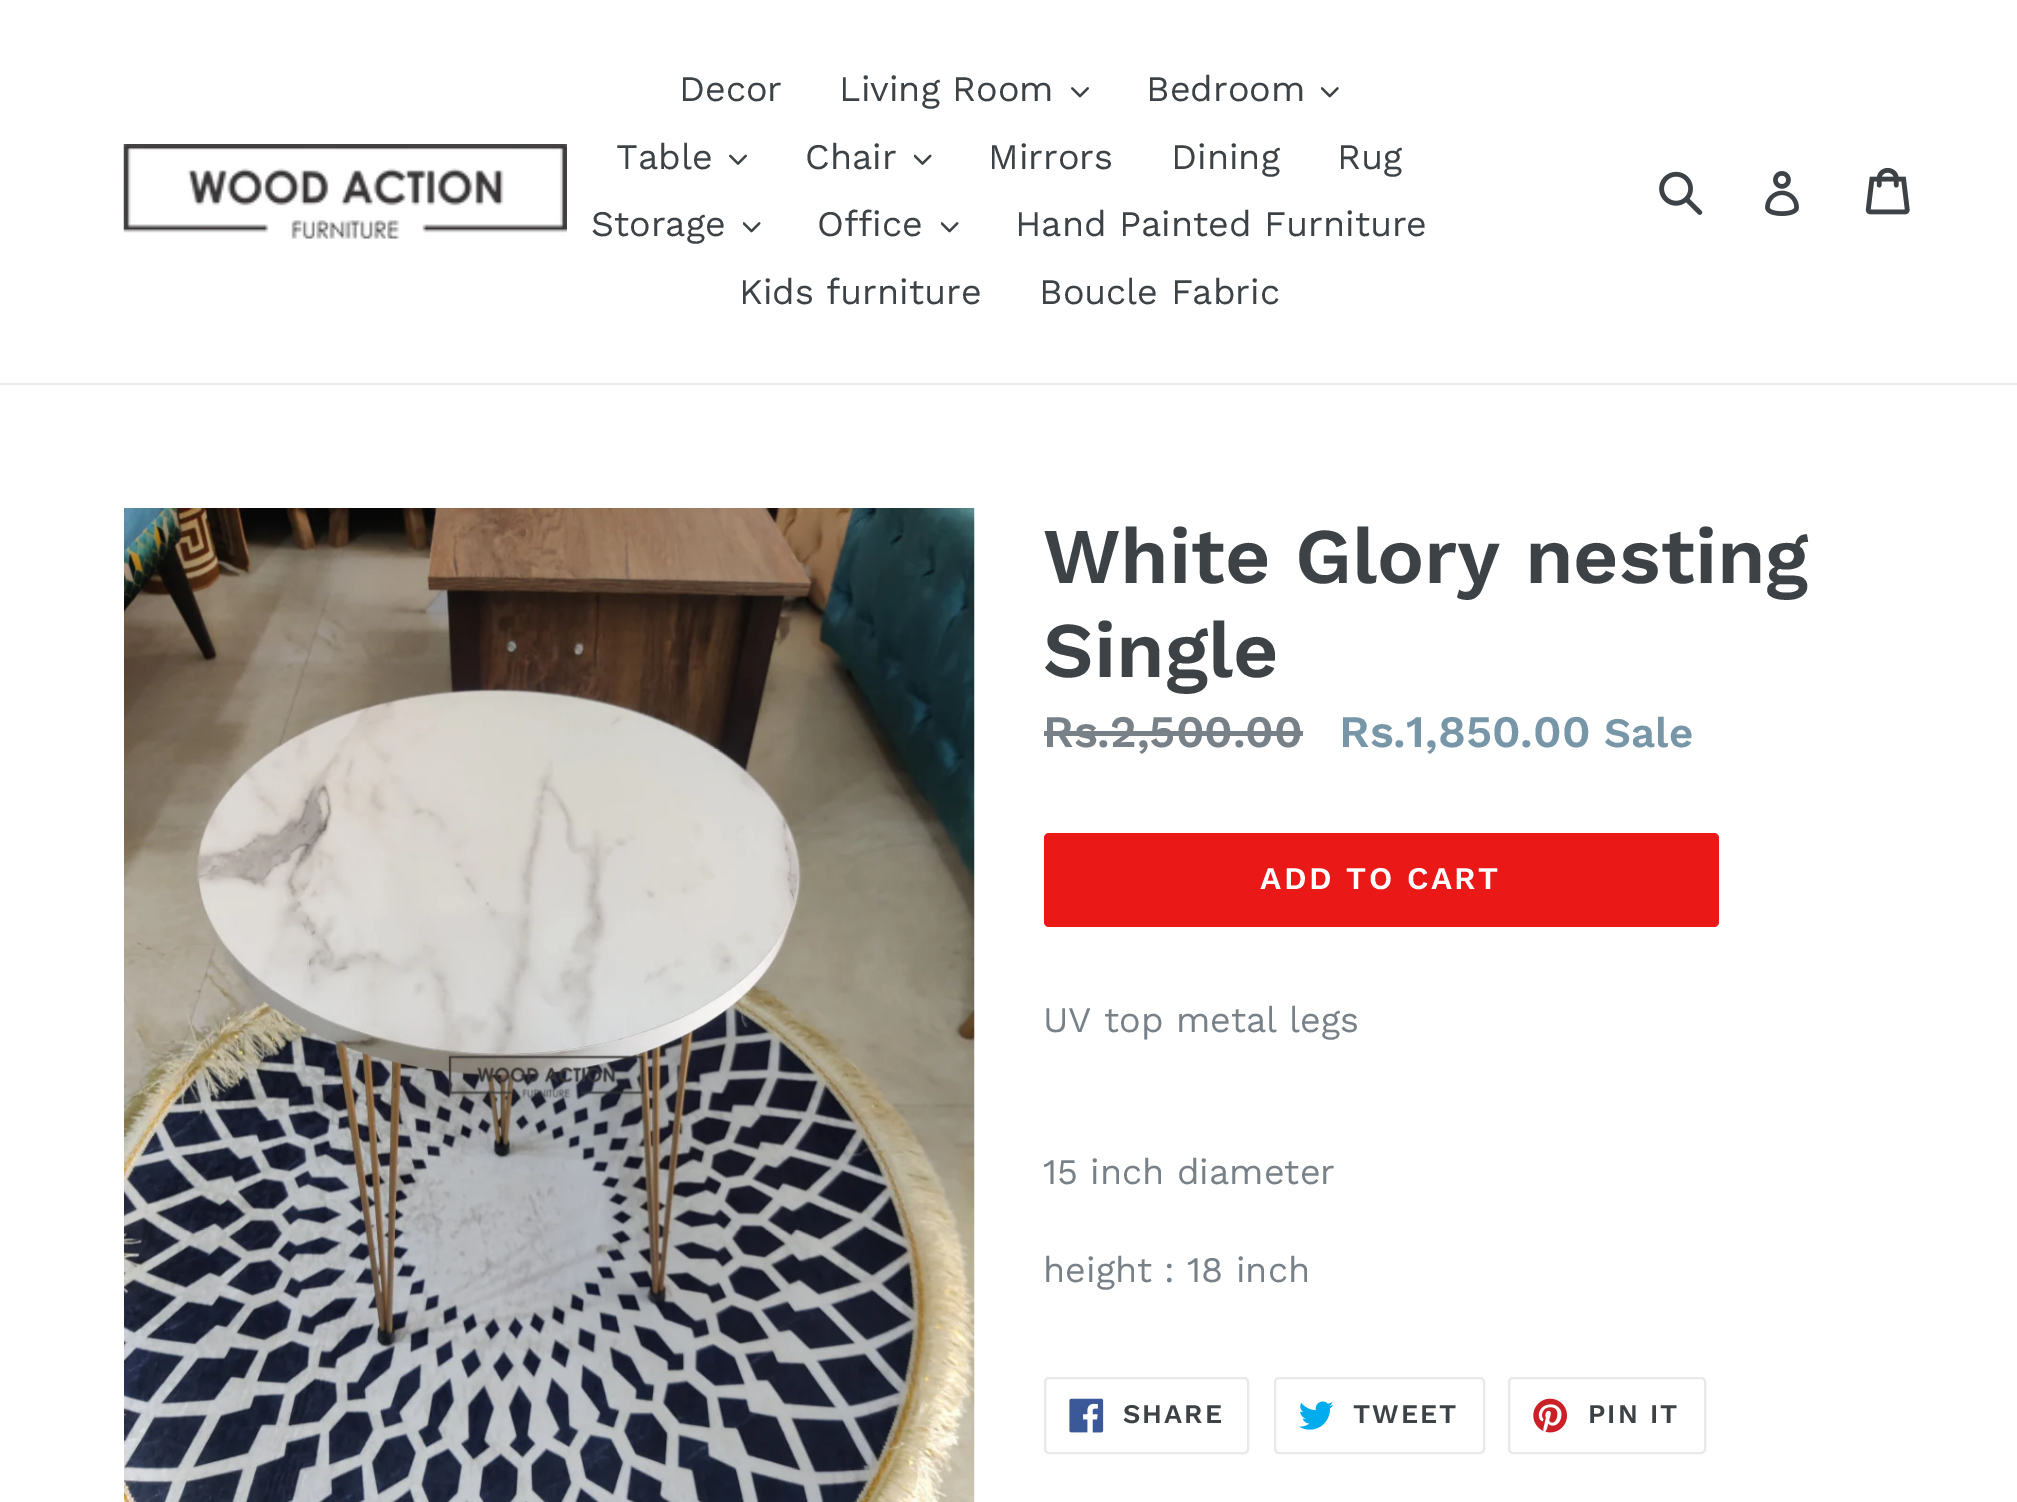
%!PS
<< /PageSize [2017 1502] >> setpagedevice
/mt/moveto load def
/fl/fill load def
/st/stroke load def
/lw/setlinewidth load def
/co { dup -16 bitshift 255 div exch dup -8 bitshift 255 and 255 div exch 255 and 255 div setrgbcolor } def
/fn { [ exch dup neg 0 0 3 -1 roll 0 0 ] selectfont } def
/tx { co fn moveto show } def
/bx { co rectfill } def
/rr { 5 dict begin { /r /h /w /y /x } { exch def } forall
  x r add y moveto x w add y 2 copy h add r arct x w add y h add x 1 index r arct
  x y h add x y r arct x y 2 copy exch w add exch r arct closepath end } def
/im { 5 dict begin { /h /w /y /x /name } { exch def } forall
  gsave x y translate w h scale
  w h 8 [w 0 0 h 0 0] name (r) file false 3 colorimage grestore end } def
0 1502 translate 1 -1 scale
4 setmiterlimit
0 0 2017 1502 16#FFFFFF bx
0 383 2017 2 16#E8E9EB bx
(media/1.raw) 123 144 444 95 im
(media/2.raw) 1071 87 18 11 im
(media/3.raw) 1321 87 18 11 im
(media/4.raw) 729 154 18 11 im
(media/5.raw) 914 154 18 11 im
(media/6.raw) 743 222 18 11 im
(media/6.raw) 941 222 18 11 im
(media/7.raw) 1659 171 44 44 im
(media/8.raw) 1765 171 34 45 im
(media/9.raw) 1865 167 45 48 im
(media/10.raw) 124 508 851 994 im
1044 731 259 5 16#788188 bx
16#EB1818 co
1044 833 675 94 5 rr fl
16#E8E9EB co
2 lw
1045 1378 203 75 4 rr st
(media/11.raw) 1069 1398 35 35 im
1275 1378 209 75 4 rr st
(media/12.raw) 1299 1401 35 29 im
1509 1378 196 75 4 rr st
(media/13.raw) 1533 1398 34 35 im
(Decor) 679 101 /WorkSans-Regular 36 16#3D4246 tx
(Living Room) 839 101 /WorkSans-Regular 36 16#3D4246 tx
(Bedroom) 1146 101 /WorkSans-Regular 36 16#3D4246 tx
(Table) 616 169 /WorkSans-Regular 36 16#3D4246 tx
(Chair) 805 169 /WorkSans-Regular 36 16#3D4246 tx
(Mirrors) 988 169 /WorkSans-Regular 36 16#3D4246 tx
(Dining) 1171 169 /WorkSans-Regular 36 16#3D4246 tx
(Rug) 1337 169 /WorkSans-Regular 36 16#3D4246 tx
(Storage) 591 236 /WorkSans-Regular 36 16#3D4246 tx
(Office) 817 236 /WorkSans-Regular 36 16#3D4246 tx
(Hand Painted Furniture) 1015 236 /WorkSans-Regular 36 16#3D4246 tx
(Kids furniture) 739 304 /WorkSans-Regular 36 16#3D4246 tx
(Boucle Fabric) 1039 304 /WorkSans-Regular 36 16#3D4246 tx
(White Glory nesting) 1043 583 /WorkSans-SemiBold 78.75 16#3D4246 tx
(Single) 1043 677 /WorkSans-SemiBold 78.75 16#3D4246 tx
(Rs.2,500.00) 1043 747 /WorkSans-SemiBold 45 16#788188 tx
(Rs.1,850.00) 1339 747 /WorkSans-SemiBold 45 16#7796A8 tx
(Sale) 1604 747 /WorkSans-SemiBold 42 16#7796A8 tx
/WorkSans-SemiBold 31.5 fn
16#FFFFFF co
1260 889 mt 2.5 0 (ADD TO CART) ashow
(UV top metal legs) 1043 1032 /WorkSans-Regular 36 16#788188 tx
(15 inch diameter) 1043 1184 /WorkSans-Regular 36 16#788188 tx
(height : 18 inch) 1043 1282 /WorkSans-Regular 36 16#788188 tx
/WorkSans-SemiBold 27 fn
16#3D4246 co
1123 1423 mt 2 0 (SHARE) ashow
1353 1423 mt 2 0 (TWEET) ashow
1588 1423 mt 2 0 (PIN IT) ashow
showpage
